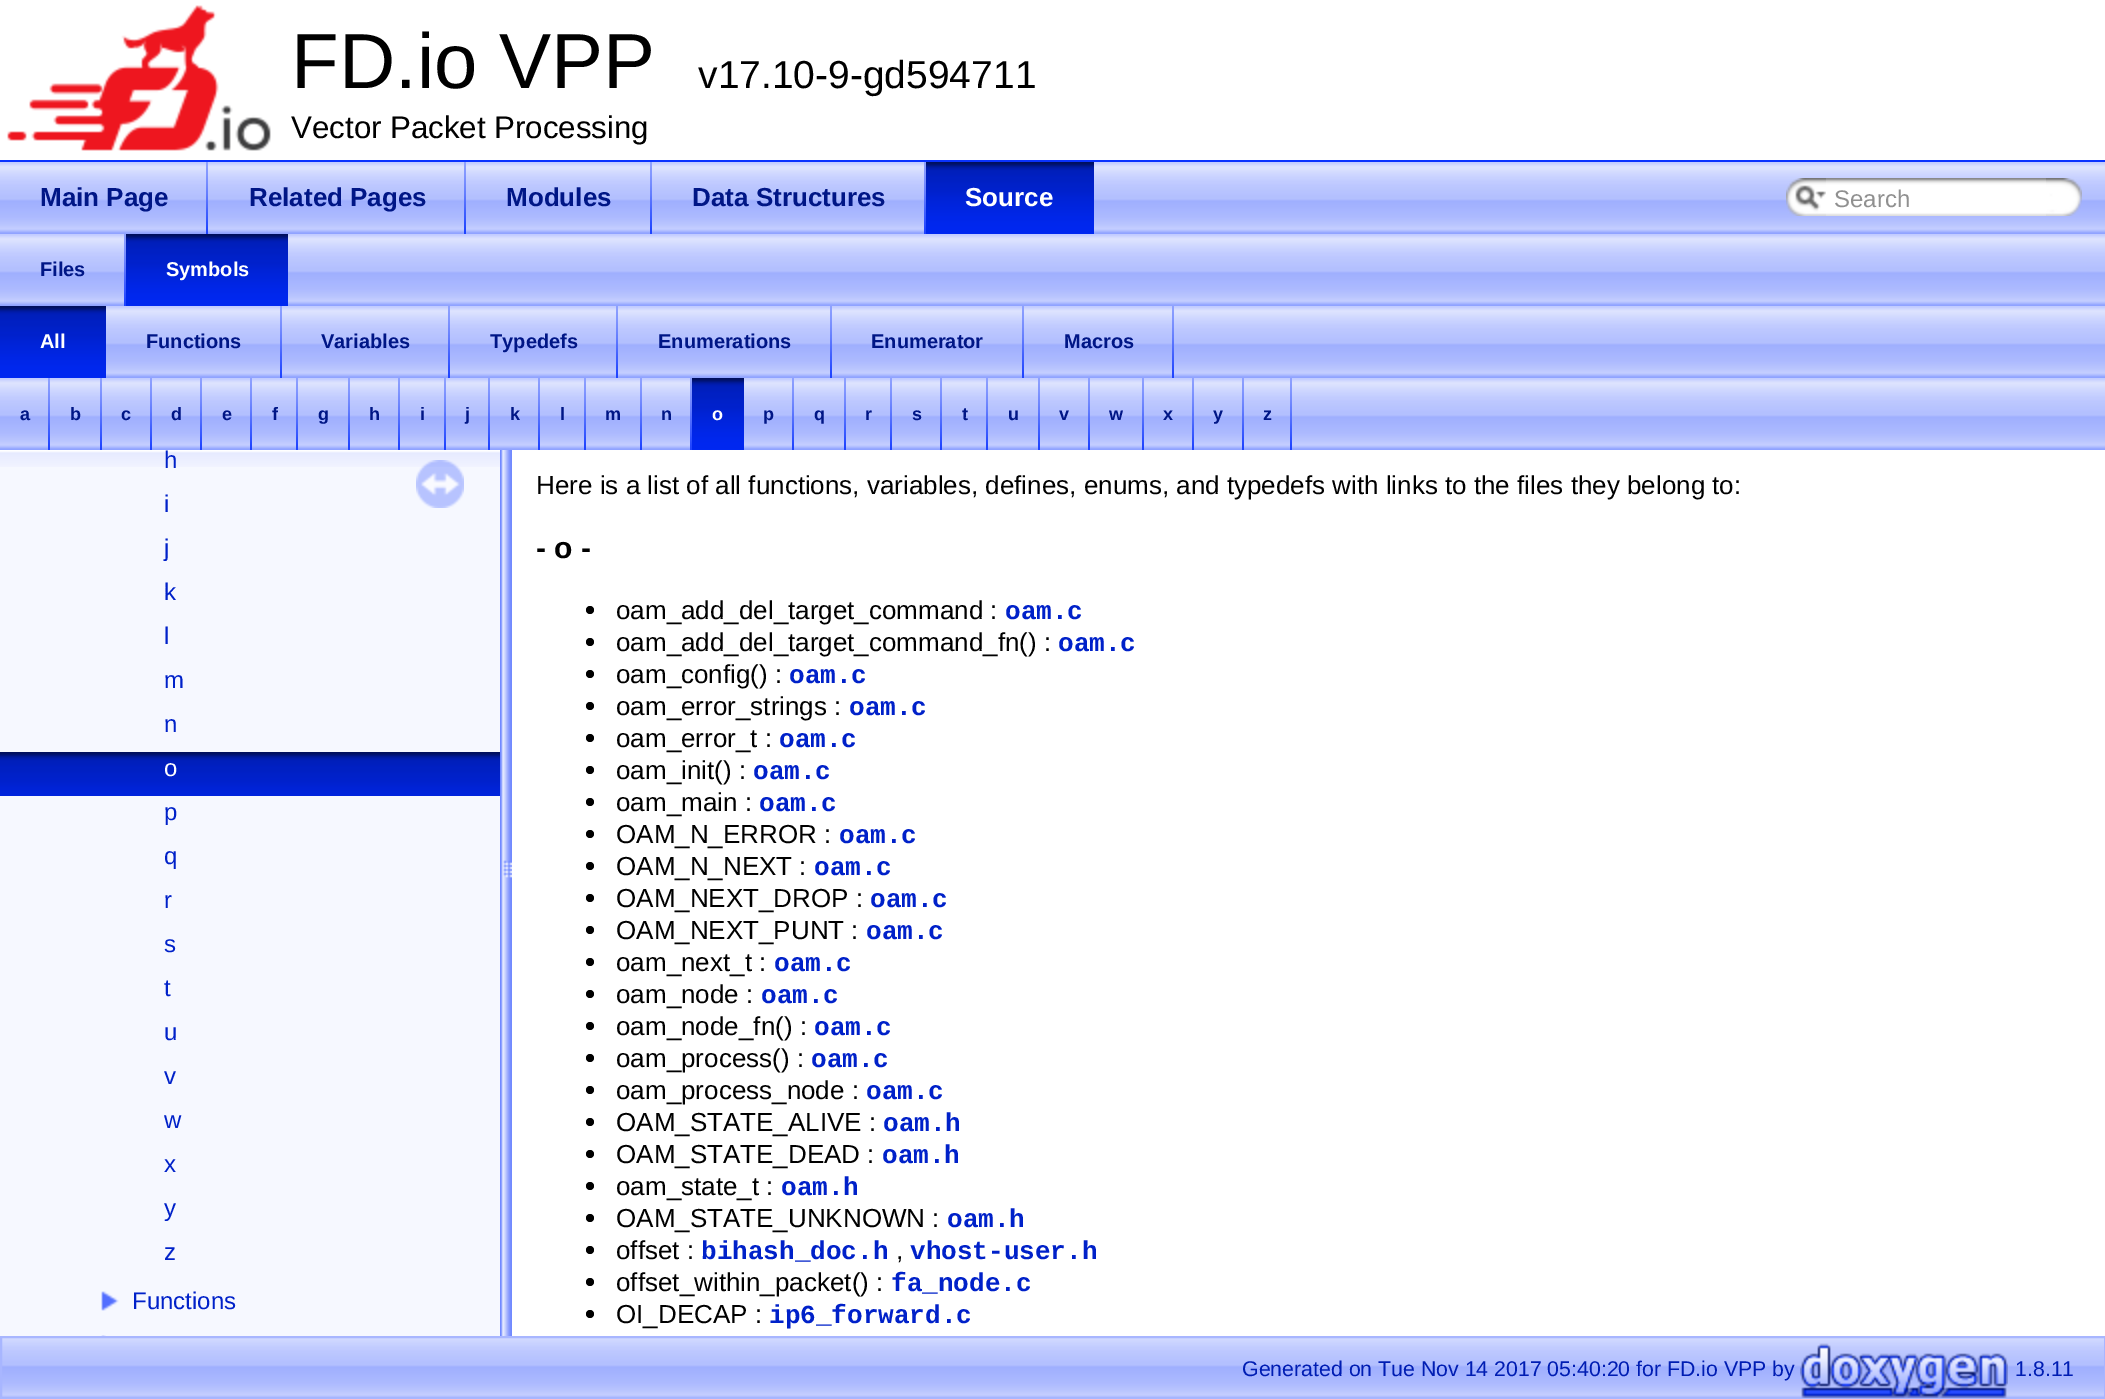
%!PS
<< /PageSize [2105 1399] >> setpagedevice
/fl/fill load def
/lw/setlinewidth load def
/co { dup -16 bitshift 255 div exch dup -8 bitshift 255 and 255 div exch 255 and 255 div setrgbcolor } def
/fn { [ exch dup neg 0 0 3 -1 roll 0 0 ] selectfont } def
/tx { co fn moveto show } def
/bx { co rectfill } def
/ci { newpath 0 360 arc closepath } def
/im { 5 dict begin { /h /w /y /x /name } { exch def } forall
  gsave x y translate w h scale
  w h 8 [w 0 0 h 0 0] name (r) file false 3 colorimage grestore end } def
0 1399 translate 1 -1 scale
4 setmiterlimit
0 0 2105 1399 16#FFFFFF bx
0 160 2105 2 16#0932FF bx
(media/1.raw) 7 5 264 146 im
(media/2.raw) 0 162 2105 72 im
(media/3.raw) 206 162 2 72 im
(media/3.raw) 464 162 2 72 im
(media/3.raw) 650 162 2 72 im
(media/3.raw) 924 162 2 72 im
(media/4.raw) 926 162 168 72 im
(media/5.raw) 1786 178 40 38 im
(media/6.raw) 1795 185 31 26 im
(media/7.raw) 1826 178 220 38 im
(media/8.raw) 2046 178 36 38 im
(media/2.raw) 0 234 2105 72 im
(media/3.raw) 124 234 2 72 im
(media/9.raw) 126 234 162 72 im
(media/10.raw) 106 306 1999 72 im
(media/11.raw) 0 306 106 72 im
(media/3.raw) 280 306 2 72 im
(media/3.raw) 448 306 2 72 im
(media/3.raw) 616 306 2 72 im
(media/3.raw) 830 306 2 72 im
(media/3.raw) 1022 306 2 72 im
(media/3.raw) 1172 306 2 72 im
(media/2.raw) 0 378 2105 72 im
(media/3.raw) 48 378 2 72 im
(media/3.raw) 100 378 2 72 im
(media/3.raw) 150 378 2 72 im
(media/3.raw) 200 378 2 72 im
(media/3.raw) 250 378 2 72 im
(media/3.raw) 296 378 2 72 im
(media/3.raw) 348 378 2 72 im
(media/3.raw) 398 378 2 72 im
(media/3.raw) 444 378 2 72 im
(media/3.raw) 488 378 2 72 im
(media/3.raw) 538 378 2 72 im
(media/3.raw) 584 378 2 72 im
(media/3.raw) 640 378 2 72 im
(media/3.raw) 690 378 2 72 im
(media/12.raw) 692 378 52 72 im
(media/3.raw) 792 378 2 72 im
(media/3.raw) 844 378 2 72 im
(media/3.raw) 890 378 2 72 im
(media/3.raw) 940 378 2 72 im
(media/3.raw) 986 378 2 72 im
(media/3.raw) 1038 378 2 72 im
(media/3.raw) 1088 378 2 72 im
(media/3.raw) 1142 378 2 72 im
(media/3.raw) 1192 378 2 72 im
(media/3.raw) 1242 378 2 72 im
(media/3.raw) 1290 378 2 72 im
0 467 500 869 16#F6F8FF bx
(media/13.raw) 0 450 500 17 im
(media/14.raw) 0 752 500 44 im
(media/15.raw) 101 1291 18 20 im
(media/16.raw) 101 1335 5 1 im
(media/17.raw) 416 460 48 48 im
(media/18.raw) 500 450 12 886 im
16#000000 co
590 610 4 ci fl
590 642 4 ci fl
590 674 4 ci fl
590 706 4 ci fl
590 738 4 ci fl
590 770 4 ci fl
590 802 4 ci fl
590 834 4 ci fl
590 866 4 ci fl
590 898 4 ci fl
590 930 4 ci fl
590 962 4 ci fl
590 994 4 ci fl
590 1026 4 ci fl
590 1058 4 ci fl
590 1090 4 ci fl
590 1122 4 ci fl
590 1154 4 ci fl
590 1186 4 ci fl
590 1218 4 ci fl
590 1250 4 ci fl
590 1282 4 ci fl
590 1314 4 ci fl
(media/19.raw) 2 1338 2102 60 im
16#A8B6FF co
2 lw
1 1337 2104 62 rectstroke
(media/20.raw) 1800 1343 208 55 im
(FD.io VPP) 291 88 /LiberationSans-Regular 78 16#000000 tx
(v17.10-9-gd594711) 698 88 /LiberationSans-Regular 39 16#000000 tx
(Vector Packet Processing) 291 138 /LiberationSans-Regular 31.25 16#000000 tx
(Main Page) 40 206 /LiberationSans-Bold 26 16#001686 tx
(Related Pages) 249 206 /LiberationSans-Bold 26 16#001686 tx
(Modules) 506 206 /LiberationSans-Bold 26 16#001686 tx
(Data Structures) 692 206 /LiberationSans-Bold 26 16#001686 tx
(Source) 965 206 /LiberationSans-Bold 26 16#FFFFFF tx
(Search) 1834 207 /LiberationSans-Regular 24 16#909090 tx
(Files) 40 276 /LiberationSans-Bold 20 16#001686 tx
(Symbols) 166 276 /LiberationSans-Bold 20 16#FFFFFF tx
(All) 40 348 /LiberationSans-Bold 20 16#FFFFFF tx
(Functions) 146 348 /LiberationSans-Bold 20 16#001686 tx
(Variables) 321 348 /LiberationSans-Bold 20 16#001686 tx
(Typedefs) 490 348 /LiberationSans-Bold 20 16#001686 tx
(Enumerations) 658 348 /LiberationSans-Bold 20 16#001686 tx
(Enumerator) 871 348 /LiberationSans-Bold 20 16#001686 tx
(Macros) 1064 348 /LiberationSans-Bold 20 16#001686 tx
(a) 20 420 /LiberationSans-Bold 18 16#001686 tx
(b) 70 420 /LiberationSans-Bold 18 16#001686 tx
(c) 121 420 /LiberationSans-Bold 18 16#001686 tx
(d) 171 420 /LiberationSans-Bold 18 16#001686 tx
(e) 222 420 /LiberationSans-Bold 18 16#001686 tx
(f) 272 420 /LiberationSans-Bold 18 16#001686 tx
(g) 318 420 /LiberationSans-Bold 18 16#001686 tx
(h) 369 420 /LiberationSans-Bold 18 16#001686 tx
(i) 420 420 /LiberationSans-Bold 18 16#001686 tx
(j) 465 420 /LiberationSans-Bold 18 16#001686 tx
(k) 510 420 /LiberationSans-Bold 18 16#001686 tx
(l) 560 420 /LiberationSans-Bold 18 16#001686 tx
(m) 605 420 /LiberationSans-Bold 18 16#001686 tx
(n) 661 420 /LiberationSans-Bold 18 16#001686 tx
(o) 712 420 /LiberationSans-Bold 18 16#FFFFFF tx
(p) 763 420 /LiberationSans-Bold 18 16#001686 tx
(q) 814 420 /LiberationSans-Bold 18 16#001686 tx
(r) 865 420 /LiberationSans-Bold 18 16#001686 tx
(s) 912 420 /LiberationSans-Bold 18 16#001686 tx
(t) 962 420 /LiberationSans-Bold 18 16#001686 tx
(u) 1008 420 /LiberationSans-Bold 18 16#001686 tx
(v) 1059 420 /LiberationSans-Bold 18 16#001686 tx
(w) 1109 420 /LiberationSans-Bold 18 16#001686 tx
(x) 1163 420 /LiberationSans-Bold 18 16#001686 tx
(y) 1213 420 /LiberationSans-Bold 18 16#001686 tx
(z) 1263 420 /LiberationSans-Bold 18 16#001686 tx
(h) 164 468 /LiberationSans-Regular 24 16#0021C9 tx
(i) 164 512 /LiberationSans-Regular 24 16#0021C9 tx
(j) 164 556 /LiberationSans-Regular 24 16#0021C9 tx
(k) 164 600 /LiberationSans-Regular 24 16#0021C9 tx
(l) 164 644 /LiberationSans-Regular 24 16#0021C9 tx
(m) 164 688 /LiberationSans-Regular 24 16#0021C9 tx
(n) 164 732 /LiberationSans-Regular 24 16#0021C9 tx
(o) 164 776 /LiberationSans-Regular 24 16#FFFFFF tx
(p) 164 820 /LiberationSans-Regular 24 16#0021C9 tx
(q) 164 864 /LiberationSans-Regular 24 16#0021C9 tx
(r) 164 908 /LiberationSans-Regular 24 16#0021C9 tx
(s) 164 952 /LiberationSans-Regular 24 16#0021C9 tx
(t) 164 996 /LiberationSans-Regular 24 16#0021C9 tx
(u) 164 1040 /LiberationSans-Regular 24 16#0021C9 tx
(v) 164 1084 /LiberationSans-Regular 24 16#0021C9 tx
(w) 164 1128 /LiberationSans-Regular 24 16#0021C9 tx
(x) 164 1172 /LiberationSans-Regular 24 16#0021C9 tx
(y) 164 1216 /LiberationSans-Regular 24 16#0021C9 tx
(z) 164 1260 /LiberationSans-Regular 24 16#0021C9 tx
(Functions) 132 1309 /LiberationSans-Regular 24 16#0021C9 tx
(Here is a list of all functions, variables, defines, enums, and typedefs with links to the files they belong to:) 536 494 /LiberationSans-Regular 26 16#000000 tx
(- o -) 536 558 /LiberationSans-Bold 30 16#000000 tx
(oam_add_del_target_command :) 616 619 /LiberationSans-Regular 26 16#000000 tx
(oam.c) 1005 619 /LiberationMono-Bold 26 16#0021C9 tx
(oam_add_del_target_command_fn\(\) :) 616 651 /LiberationSans-Regular 26 16#000000 tx
(oam.c) 1058 651 /LiberationMono-Bold 26 16#0021C9 tx
(oam_config\(\) :) 616 683 /LiberationSans-Regular 26 16#000000 tx
(oam.c) 789 683 /LiberationMono-Bold 26 16#0021C9 tx
(oam_error_strings :) 616 715 /LiberationSans-Regular 26 16#000000 tx
(oam.c) 849 715 /LiberationMono-Bold 26 16#0021C9 tx
(oam_error_t :) 616 747 /LiberationSans-Regular 26 16#000000 tx
(oam.c) 779 747 /LiberationMono-Bold 26 16#0021C9 tx
(oam_init\(\) :) 616 779 /LiberationSans-Regular 26 16#000000 tx
(oam.c) 753 779 /LiberationMono-Bold 26 16#0021C9 tx
(oam_main :) 616 811 /LiberationSans-Regular 26 16#000000 tx
(oam.c) 759 811 /LiberationMono-Bold 26 16#0021C9 tx
(OAM_N_ERROR :) 616 843 /LiberationSans-Regular 26 16#000000 tx
(oam.c) 839 843 /LiberationMono-Bold 26 16#0021C9 tx
(OAM_N_NEXT :) 616 875 /LiberationSans-Regular 26 16#000000 tx
(oam.c) 814 875 /LiberationMono-Bold 26 16#0021C9 tx
(OAM_NEXT_DROP :) 616 907 /LiberationSans-Regular 26 16#000000 tx
(oam.c) 870 907 /LiberationMono-Bold 26 16#0021C9 tx
(OAM_NEXT_PUNT :) 616 939 /LiberationSans-Regular 26 16#000000 tx
(oam.c) 866 939 /LiberationMono-Bold 26 16#0021C9 tx
(oam_next_t :) 616 971 /LiberationSans-Regular 26 16#000000 tx
(oam.c) 774 971 /LiberationMono-Bold 26 16#0021C9 tx
(oam_node :) 616 1003 /LiberationSans-Regular 26 16#000000 tx
(oam.c) 761 1003 /LiberationMono-Bold 26 16#0021C9 tx
(oam_node_fn\(\) :) 616 1035 /LiberationSans-Regular 26 16#000000 tx
(oam.c) 814 1035 /LiberationMono-Bold 26 16#0021C9 tx
(oam_process\(\) :) 616 1067 /LiberationSans-Regular 26 16#000000 tx
(oam.c) 811 1067 /LiberationMono-Bold 26 16#0021C9 tx
(oam_process_node :) 616 1099 /LiberationSans-Regular 26 16#000000 tx
(oam.c) 866 1099 /LiberationMono-Bold 26 16#0021C9 tx
(OAM_STATE_ALIVE :) 616 1131 /LiberationSans-Regular 26 16#000000 tx
(oam.h) 883 1131 /LiberationMono-Bold 26 16#0021C9 tx
(OAM_STATE_DEAD :) 616 1163 /LiberationSans-Regular 26 16#000000 tx
(oam.h) 882 1163 /LiberationMono-Bold 26 16#0021C9 tx
(oam_state_t :) 616 1195 /LiberationSans-Regular 26 16#000000 tx
(oam.h) 781 1195 /LiberationMono-Bold 26 16#0021C9 tx
(OAM_STATE_UNKNOWN :) 616 1227 /LiberationSans-Regular 26 16#000000 tx
(oam.h) 947 1227 /LiberationMono-Bold 26 16#0021C9 tx
(offset :) 616 1259 /LiberationSans-Regular 26 16#000000 tx
(bihash_doc.h) 701 1259 /LiberationMono-Bold 26 16#0021C9 tx
(vhost-user.h) 910 1259 /LiberationMono-Bold 26 16#0021C9 tx
(,) 896 1259 /LiberationSans-Regular 26 16#000000 tx
(offset_within_packet\(\) :) 616 1291 /LiberationSans-Regular 26 16#000000 tx
(fa_node.c) 891 1291 /LiberationMono-Bold 26 16#0021C9 tx
(OI_DECAP :) 616 1323 /LiberationSans-Regular 26 16#000000 tx
(ip6_forward.c) 769 1323 /LiberationMono-Bold 26 16#0021C9 tx
(Generated on Tue Nov 14 2017 05:40:20 for FD.io VPP by) 1242 1376 /LiberationSans-Regular 21.3 16#001DB3 tx
(1.8.11) 2015 1376 /LiberationSans-Regular 21.3 16#001DB3 tx
showpage
